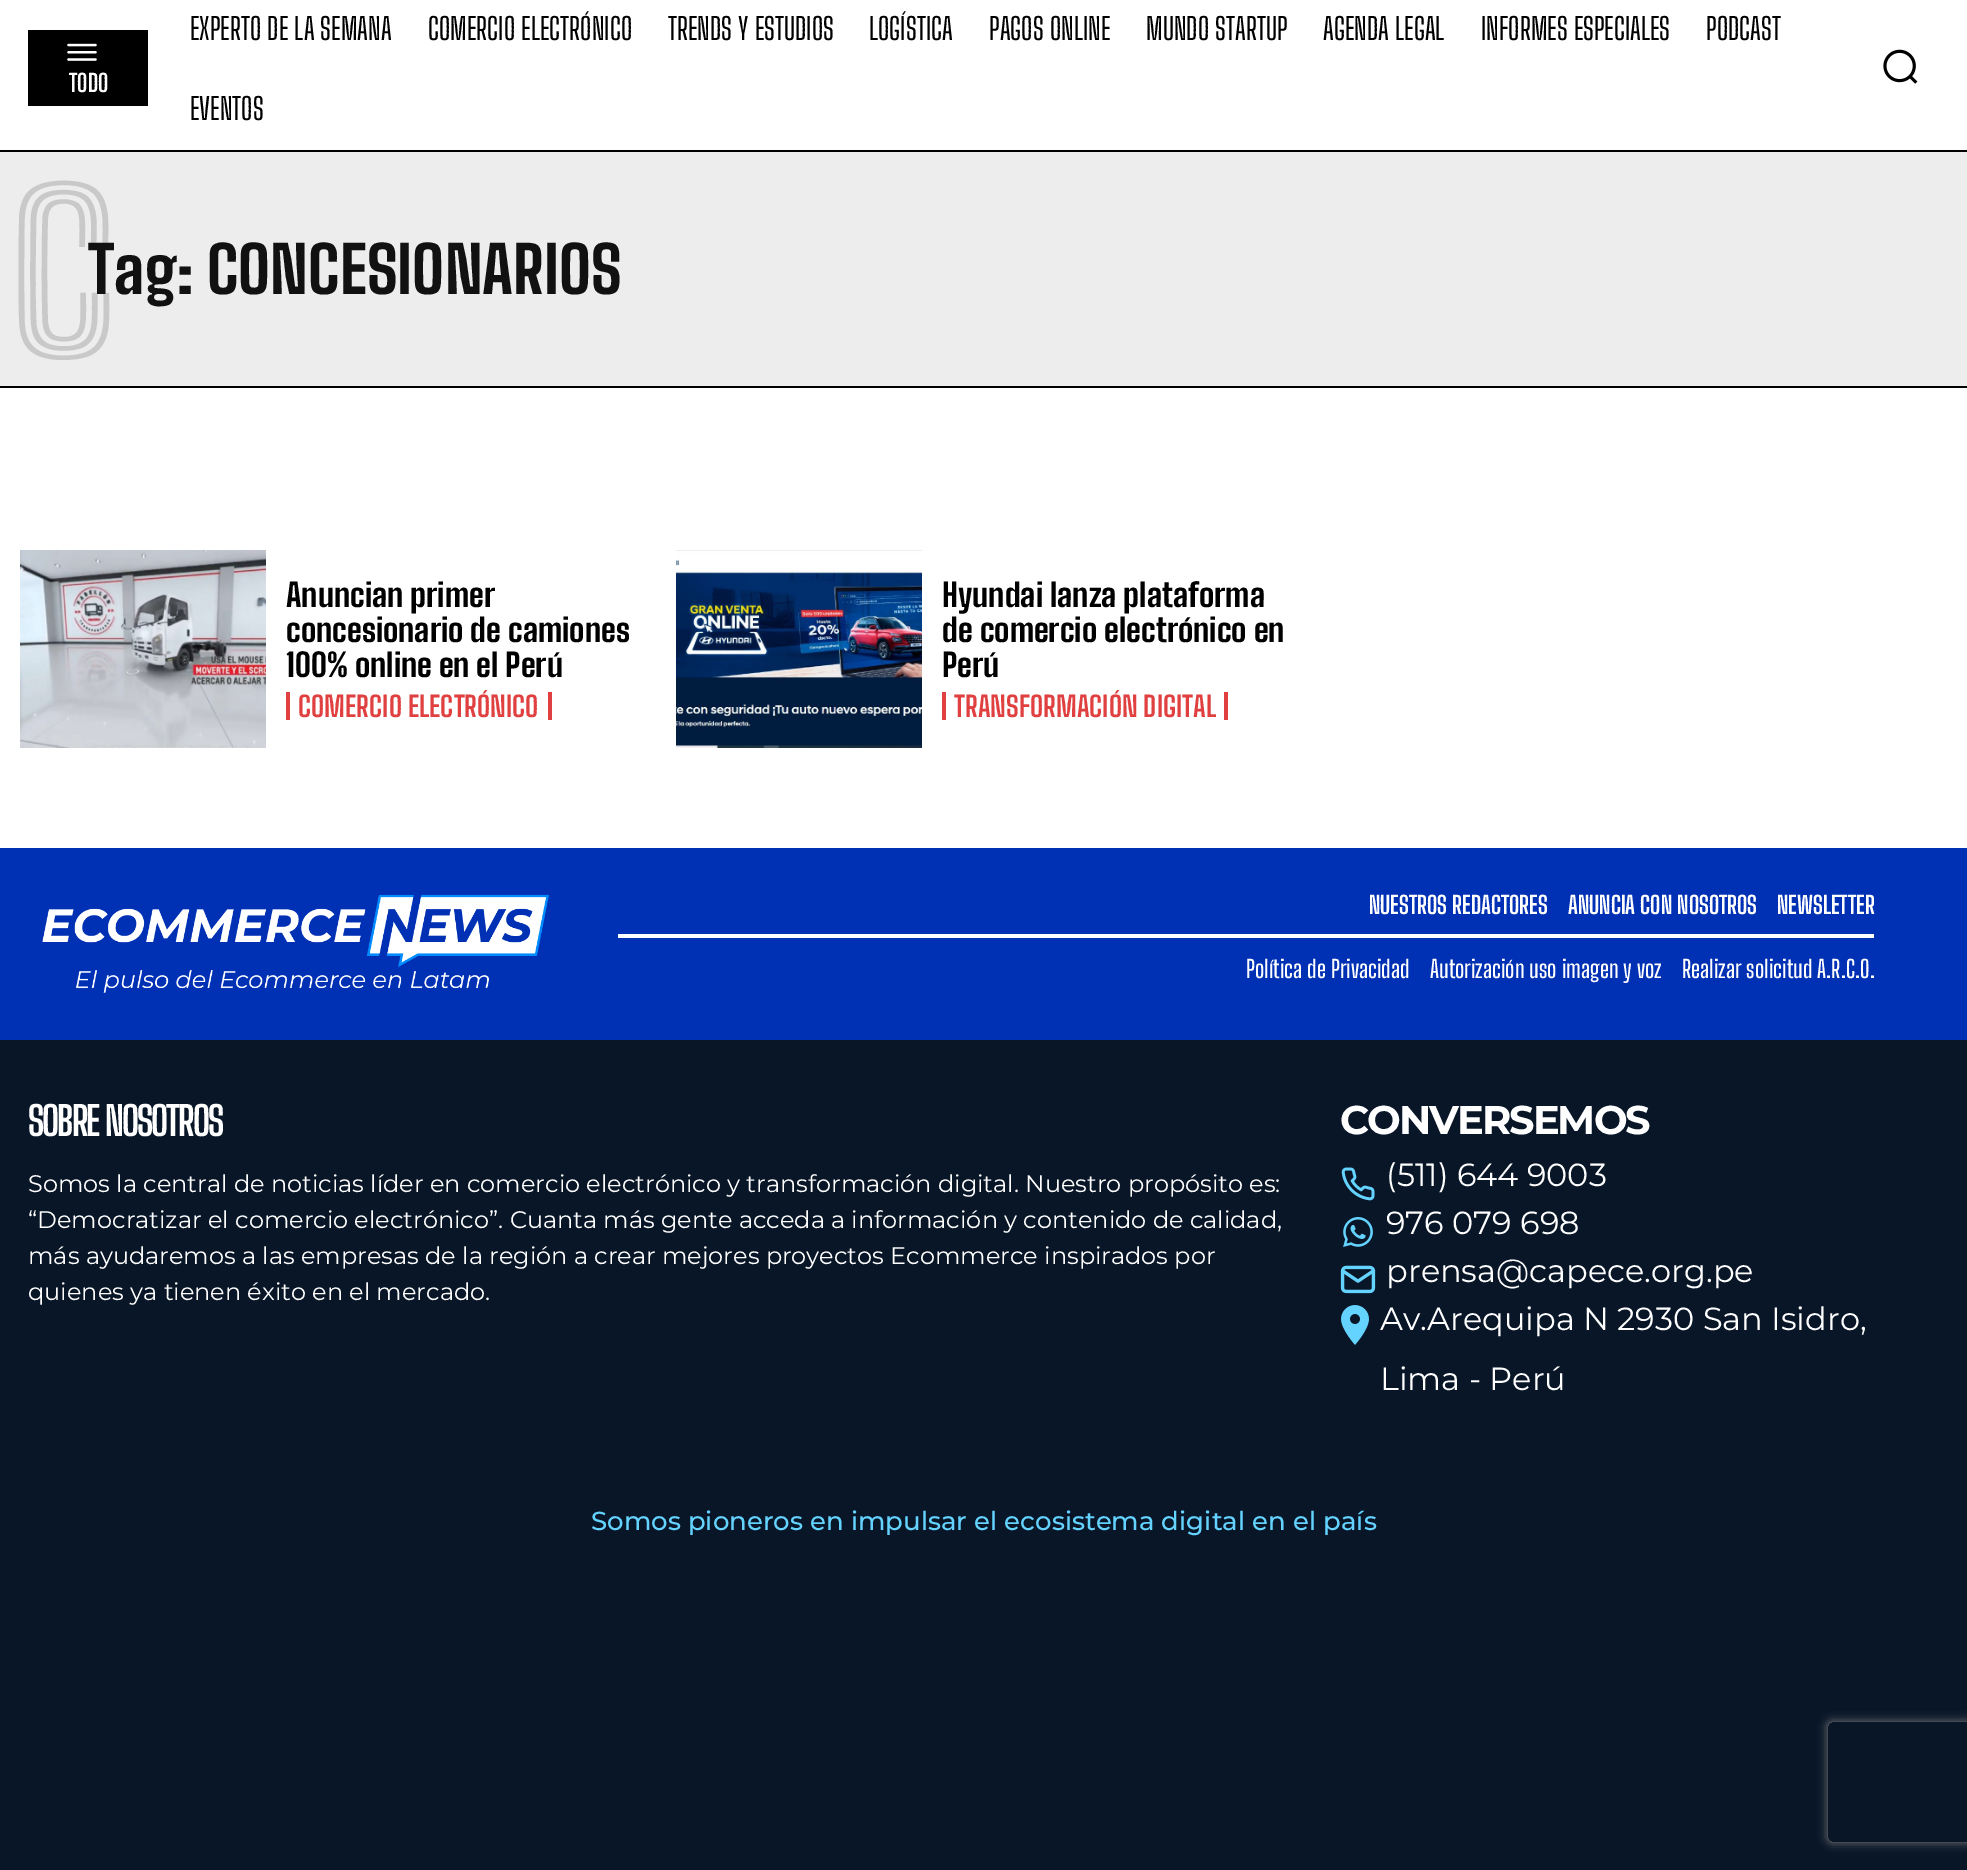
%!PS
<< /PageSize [1967 1870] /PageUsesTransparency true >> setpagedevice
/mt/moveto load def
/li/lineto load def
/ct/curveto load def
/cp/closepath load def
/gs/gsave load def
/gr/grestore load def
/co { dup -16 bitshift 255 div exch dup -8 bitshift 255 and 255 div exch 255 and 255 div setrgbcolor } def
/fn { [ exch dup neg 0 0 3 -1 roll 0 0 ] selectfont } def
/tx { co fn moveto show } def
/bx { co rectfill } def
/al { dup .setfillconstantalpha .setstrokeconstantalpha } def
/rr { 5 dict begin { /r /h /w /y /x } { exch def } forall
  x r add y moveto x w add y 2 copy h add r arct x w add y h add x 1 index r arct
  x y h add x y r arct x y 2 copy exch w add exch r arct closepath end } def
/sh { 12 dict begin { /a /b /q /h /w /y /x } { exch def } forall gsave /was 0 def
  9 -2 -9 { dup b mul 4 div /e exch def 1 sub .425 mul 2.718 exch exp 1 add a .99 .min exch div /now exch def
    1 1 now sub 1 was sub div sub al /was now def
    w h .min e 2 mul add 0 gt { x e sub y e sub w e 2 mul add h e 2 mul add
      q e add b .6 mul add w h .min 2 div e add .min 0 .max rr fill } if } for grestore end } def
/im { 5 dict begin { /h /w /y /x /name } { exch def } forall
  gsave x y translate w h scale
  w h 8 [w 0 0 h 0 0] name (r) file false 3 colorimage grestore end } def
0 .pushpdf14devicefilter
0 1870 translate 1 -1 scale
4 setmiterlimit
0 0 1967 1870 16#FFFFFF bx
28 30 120 76 16#000000 bx
(media/1.raw) 67 43 30 18 im
(media/2.raw) 1883 49 35 35 im
0 150 1967 2 16#000000 bx
0 152 1967 234 16#EDEDED bx
0 386 1967 2 16#000000 bx
(media/3.raw) 20 550 246 198 im
548 692 4 28 16#E04040 bx
286 692 4 28 16#E04040 bx
(media/4.raw) 676 550 246 198 im
1224 692 4 28 16#E04040 bx
942 692 4 28 16#E04040 bx
0 848 1967 192 16#0030B3 bx
(media/5.raw) 42 894 507 99 im
618 934 1256 4 16#FFFFFF bx
0 1040 1967 830 16#081627 bx
(media/6.raw) 1341 1167 34 34 im
(media/7.raw) 1343 1217 30 30 im
(media/8.raw) 1340 1265 36 29 im
(media/9.raw) 1341 1305 28 40 im
gs
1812 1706 mt 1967 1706 li 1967 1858 li 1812 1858 li cp 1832 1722 mt 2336 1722 li 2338 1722 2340 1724 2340 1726 ct 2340 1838 li 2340 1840 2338 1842 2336 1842 ct 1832 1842 li 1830 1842 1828 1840 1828 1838 ct 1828 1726 li 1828 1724 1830 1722 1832 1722 ct cp eoclip newpath
16#808080 co
1828 1722 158 120 4 5 1 sh
gr
(TODO) 69 92 /BigShouldersDisplay-Bold 24 16#FFFFFF tx
(EXPERTO DE LA SEMANA) 190 40 /BigShouldersDisplay-Medium 30 16#000000 tx
(COMERCIO ELECTRÓNICO) 428 40 /BigShouldersDisplay-Medium 30 16#000000 tx
(TRENDS Y ESTUDIOS) 668 40 /BigShouldersDisplay-Medium 30 16#000000 tx
(LOGÍSTICA) 869 40 /BigShouldersDisplay-Medium 30 16#000000 tx
(PAGOS ONLINE) 989 40 /BigShouldersDisplay-Medium 30 16#000000 tx
(MUNDO STARTUP) 1146 40 /BigShouldersDisplay-Medium 30 16#000000 tx
(AGENDA LEGAL) 1323 40 /BigShouldersDisplay-Medium 30 16#000000 tx
(INFORMES ESPECIALES) 1481 40 /BigShouldersDisplay-Medium 30 16#000000 tx
(PODCAST) 1706 40 /BigShouldersDisplay-Medium 30 16#000000 tx
(EVENTOS) 190 120 /BigShouldersDisplay-Medium 30 16#000000 tx
(C) 9 358 /BigShouldersInlineText-ExtraBold 220 16#C9C9C9 tx
(Tag: CONCESIONARIOS) 88 294 /BigShouldersText-ExtraBold 64 16#111111 tx
(Anuncian primer) 286 607 /BigShouldersText-ExtraBold 32 16#000000 tx
(concesionario de camiones) 286 642 /BigShouldersText-ExtraBold 32 16#000000 tx
(100% online en el Perú) 286 677 /BigShouldersText-ExtraBold 32 16#000000 tx
(COMERCIO ELECTRÓNICO) 298 717 /BigShouldersText-Bold 28 16#E04040 tx
(Hyundai lanza plataforma) 942 607 /BigShouldersText-ExtraBold 32 16#000000 tx
(de comercio electrónico en) 942 642 /BigShouldersText-ExtraBold 32 16#000000 tx
(Perú) 942 677 /BigShouldersText-ExtraBold 32 16#000000 tx
(TRANSFORMACIÓN DIGITAL) 954 717 /BigShouldersText-Bold 28 16#E04040 tx
(NUESTROS REDACTORES) 1369 914 /BigShouldersDisplay-Bold 24 16#FFFFFF tx
(ANUNCIA CON NOSOTROS) 1568 914 /BigShouldersDisplay-Bold 24 16#FFFFFF tx
(NEWSLETTER) 1777 914 /BigShouldersDisplay-Bold 24 16#FFFFFF tx
(Política de Privacidad) 1246 978 /BigShouldersDisplay-SemiBold 24 16#FFFFFF tx
(Autorización uso imagen y voz) 1430 978 /BigShouldersDisplay-SemiBold 24 16#FFFFFF tx
(Realizar solicitud A.R.C.O.) 1682 978 /BigShouldersDisplay-SemiBold 24 16#FFFFFF tx
/BigShouldersDisplay-Bold 40 fn
28 1136 mt -2 0 (SOBRE NOSOTROS) ashow
(Somos la central de noticias líder en comercio electrónico y transformación digital. Nuestro propósito es:) 28 1192 /Montserrat-Regular 24 16#FFFFFF tx
(“Democratizar el comercio electrónico”. Cuanta más gente acceda a información y contenido de calidad,) 28 1228 /Montserrat-Regular 24 16#FFFFFF tx
(más ayudaremos a las empresas de la región a crear mejores proyectos Ecommerce inspirados por) 28 1264 /Montserrat-Regular 24 16#FFFFFF tx
(quienes ya tienen éxito en el mercado.) 28 1300 /Montserrat-Regular 24 16#FFFFFF tx
/Montserrat-Bold 40 fn
1340 1134 mt -2 0 (CONVERSEMOS) ashow
(\(511\) 644 9003) 1386 1186 /Montserrat-Regular 32 16#FFFFFF tx
(976 079 698) 1386 1234 /Montserrat-Regular 32 16#FFFFFF tx
(prensa@capece.org.pe) 1386 1282 /Montserrat-Regular 32 16#FFFFFF tx
(Av.Arequipa N 2930 San Isidro,) 1380 1330 /Montserrat-Regular 32 16#FFFFFF tx
(Lima - Perú) 1380 1390 /Montserrat-Regular 32 16#FFFFFF tx
(Somos pioneros en impulsar el ecosistema digital en el país) 591 1530 /Montserrat-Medium 26 16#64D3FF tx
.poppdf14devicefilter showpage
